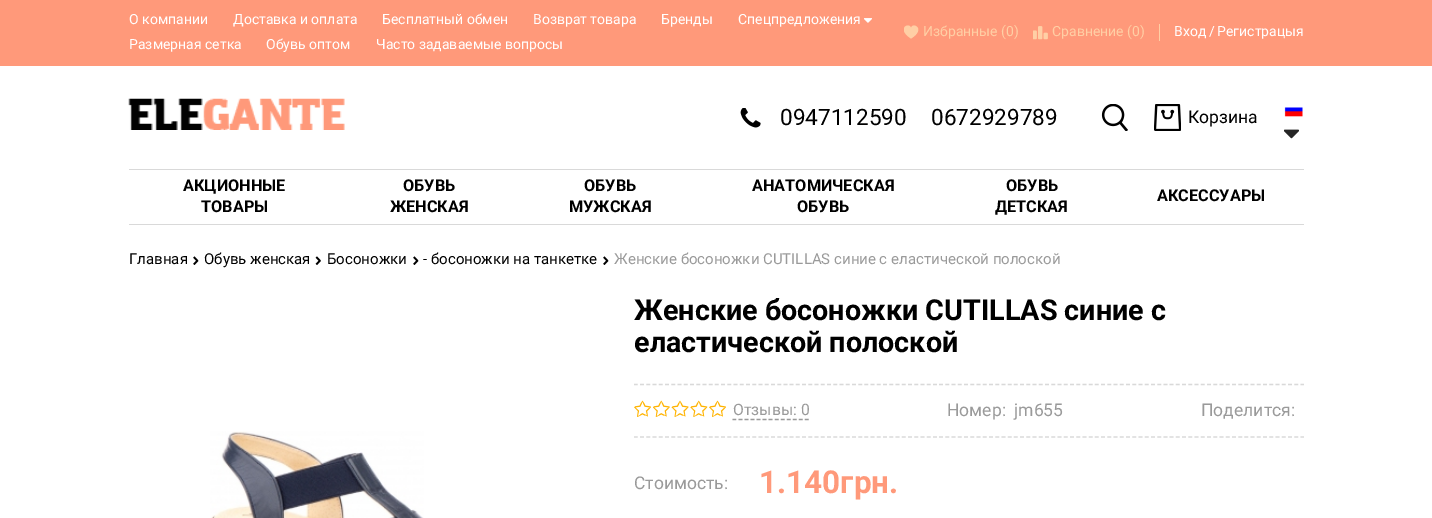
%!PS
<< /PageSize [1432 518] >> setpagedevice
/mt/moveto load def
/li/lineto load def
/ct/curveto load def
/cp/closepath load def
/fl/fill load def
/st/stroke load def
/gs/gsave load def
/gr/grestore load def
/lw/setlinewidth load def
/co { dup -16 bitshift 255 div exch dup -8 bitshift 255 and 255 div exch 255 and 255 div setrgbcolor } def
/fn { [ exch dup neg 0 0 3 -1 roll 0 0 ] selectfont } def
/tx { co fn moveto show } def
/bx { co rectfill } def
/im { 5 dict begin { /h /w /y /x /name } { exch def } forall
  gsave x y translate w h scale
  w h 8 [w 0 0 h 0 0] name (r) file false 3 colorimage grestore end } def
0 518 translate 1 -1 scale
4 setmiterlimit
0 0 1432 518 16#FFFFFF bx
0 0 1432 66 16#FF997A bx
(media/1.raw) 864 18 8 5 im
gs
904 25 15 15 rectclip
16#FFCFA5 co
911 38.5 mt 895.5 28.5 909.5 21.5 911 28 ct 912.5 21.5 926.5 29 911 38.5 ct cp fl
gr
(media/2.raw) 1033 26 15 14 im
1159 24 1 17 16#FFCFA5 bx
129 169 1175 1 16#D9D9D9 bx
(media/3.raw) 128 98 217 32 im
(media/4.raw) 740 108 21 20 im
(media/5.raw) 1101 104 27 27 im
(media/6.raw) 1154 104 27 27 im
(media/7.raw) 1284 107 19 10 im
(media/8.raw) 1284 129 15 10 im
129 224 1175 1 16#D9D9D9 bx
(media/9.raw) 193 256 6 9 im
(media/10.raw) 315 256 6 9 im
(media/9.raw) 413 256 6 9 im
(media/9.raw) 603 256 6 9 im
(media/11.raw) 210 431 214 87 im
1.2 lw
[3.75 2.48] 0 setdash
634 384.5 mt 1304 384.5 li st
634 437 mt 1304 437 li st
(media/12.raw) 634 400 17 17 im
(media/13.raw) 653 400 17 17 im
(media/14.raw) 671 400 18 17 im
(media/15.raw) 690 400 18 17 im
(media/12.raw) 709 400 17 17 im
16#9A9A9A co
[3.75 2.29] 0 setdash
732.5 419.5 mt 809 419.5 li st
(О компании) 129 24 /Roboto-Regular 14 16#FFFFFF tx
(Доставка и оплата) 233 24 /Roboto-Regular 14 16#FFFFFF tx
(Бесплатный обмен) 382 24 /Roboto-Regular 14 16#FFFFFF tx
(Возврат товара) 533 24 /Roboto-Regular 14 16#FFFFFF tx
(Бренды) 661 24 /Roboto-Regular 14 16#FFFFFF tx
(Спецпредложения) 738 24 /Roboto-Regular 14 16#FFFFFF tx
(Размерная сетка) 129 49 /Roboto-Regular 14 16#FFFFFF tx
(Обувь оптом) 266 49 /Roboto-Regular 14 16#FFFFFF tx
(Часто задаваемые вопросы) 376 49 /Roboto-Regular 14 16#FFFFFF tx
(Избранные \(0\)) 923 36 /Roboto-Regular 14 16#FFCFA5 tx
(Сравнение \(0\)) 1052 36 /Roboto-Regular 14 16#FFCFA5 tx
(Вход) 1174 36 /Roboto-Regular 14 16#FFFFFF tx
(/) 1209 36 /Roboto-Regular 14 16#FFFFFF tx
(Регистрацыя) 1217 36 /Roboto-Regular 14 16#FFFFFF tx
(0947112590) 780 125 /Roboto-Regular 22.5 16#000000 tx
(0672929789) 931 125 /Roboto-Regular 22.5 16#000000 tx
(Корзина) 1188 123 /Roboto-Regular 17.5 16#000000 tx
(АКЦИОННЫЕ) 183 191 /Roboto-Bold 16.25 16#000000 tx
(ТОВАРЫ) 201 212 /Roboto-Bold 16.25 16#000000 tx
(ОБУВЬ) 403 191 /Roboto-Bold 16.25 16#000000 tx
(ЖЕНСКАЯ) 390 212 /Roboto-Bold 16.25 16#000000 tx
(ОБУВЬ) 584 191 /Roboto-Bold 16.25 16#000000 tx
(МУЖСКАЯ) 569 212 /Roboto-Bold 16.25 16#000000 tx
(АНАТОМИЧЕСКАЯ) 752 191 /Roboto-Bold 16.25 16#000000 tx
(ОБУВЬ) 797 212 /Roboto-Bold 16.25 16#000000 tx
(ОБУВЬ) 1006 191 /Roboto-Bold 16.25 16#000000 tx
(ДЕТСКАЯ) 995 212 /Roboto-Bold 16.25 16#000000 tx
(АКСЕССУАРЫ) 1157 201 /Roboto-Bold 16.25 16#000000 tx
(Главная) 129 264 /Roboto-Regular 15 16#000000 tx
(Обувь женская) 204 264 /Roboto-Regular 15 16#000000 tx
(Босоножки) 327 264 /Roboto-Regular 15 16#000000 tx
(- босоножки на танкетке) 423 264 /Roboto-Regular 15 16#000000 tx
(Женские босоножки CUTILLAS синие с еластической полоской) 614 264 /Roboto-Regular 15 16#9A9A9A tx
(Женские босоножки CUTILLAS синие с) 634 320 /Roboto-Bold 28.75 16#000000 tx
(еластической полоской) 634 352 /Roboto-Bold 28.75 16#000000 tx
(Отзывы: 0) 733 415 /Roboto-Regular 15.75 16#9A9A9A tx
(Номер:) 947 416 /Roboto-Regular 17.5 16#9A9A9A tx
(jm655) 1014 416 /Roboto-Regular 17.5 16#9A9A9A tx
(Поделится:) 1201 416 /Roboto-Regular 17.5 16#9A9A9A tx
(Стоимость:) 634 489 /Roboto-Regular 17.5 16#9A9A9A tx
(1.140грн.) 759 493 /Roboto-Bold 31.5 16#FF997A tx
showpage
